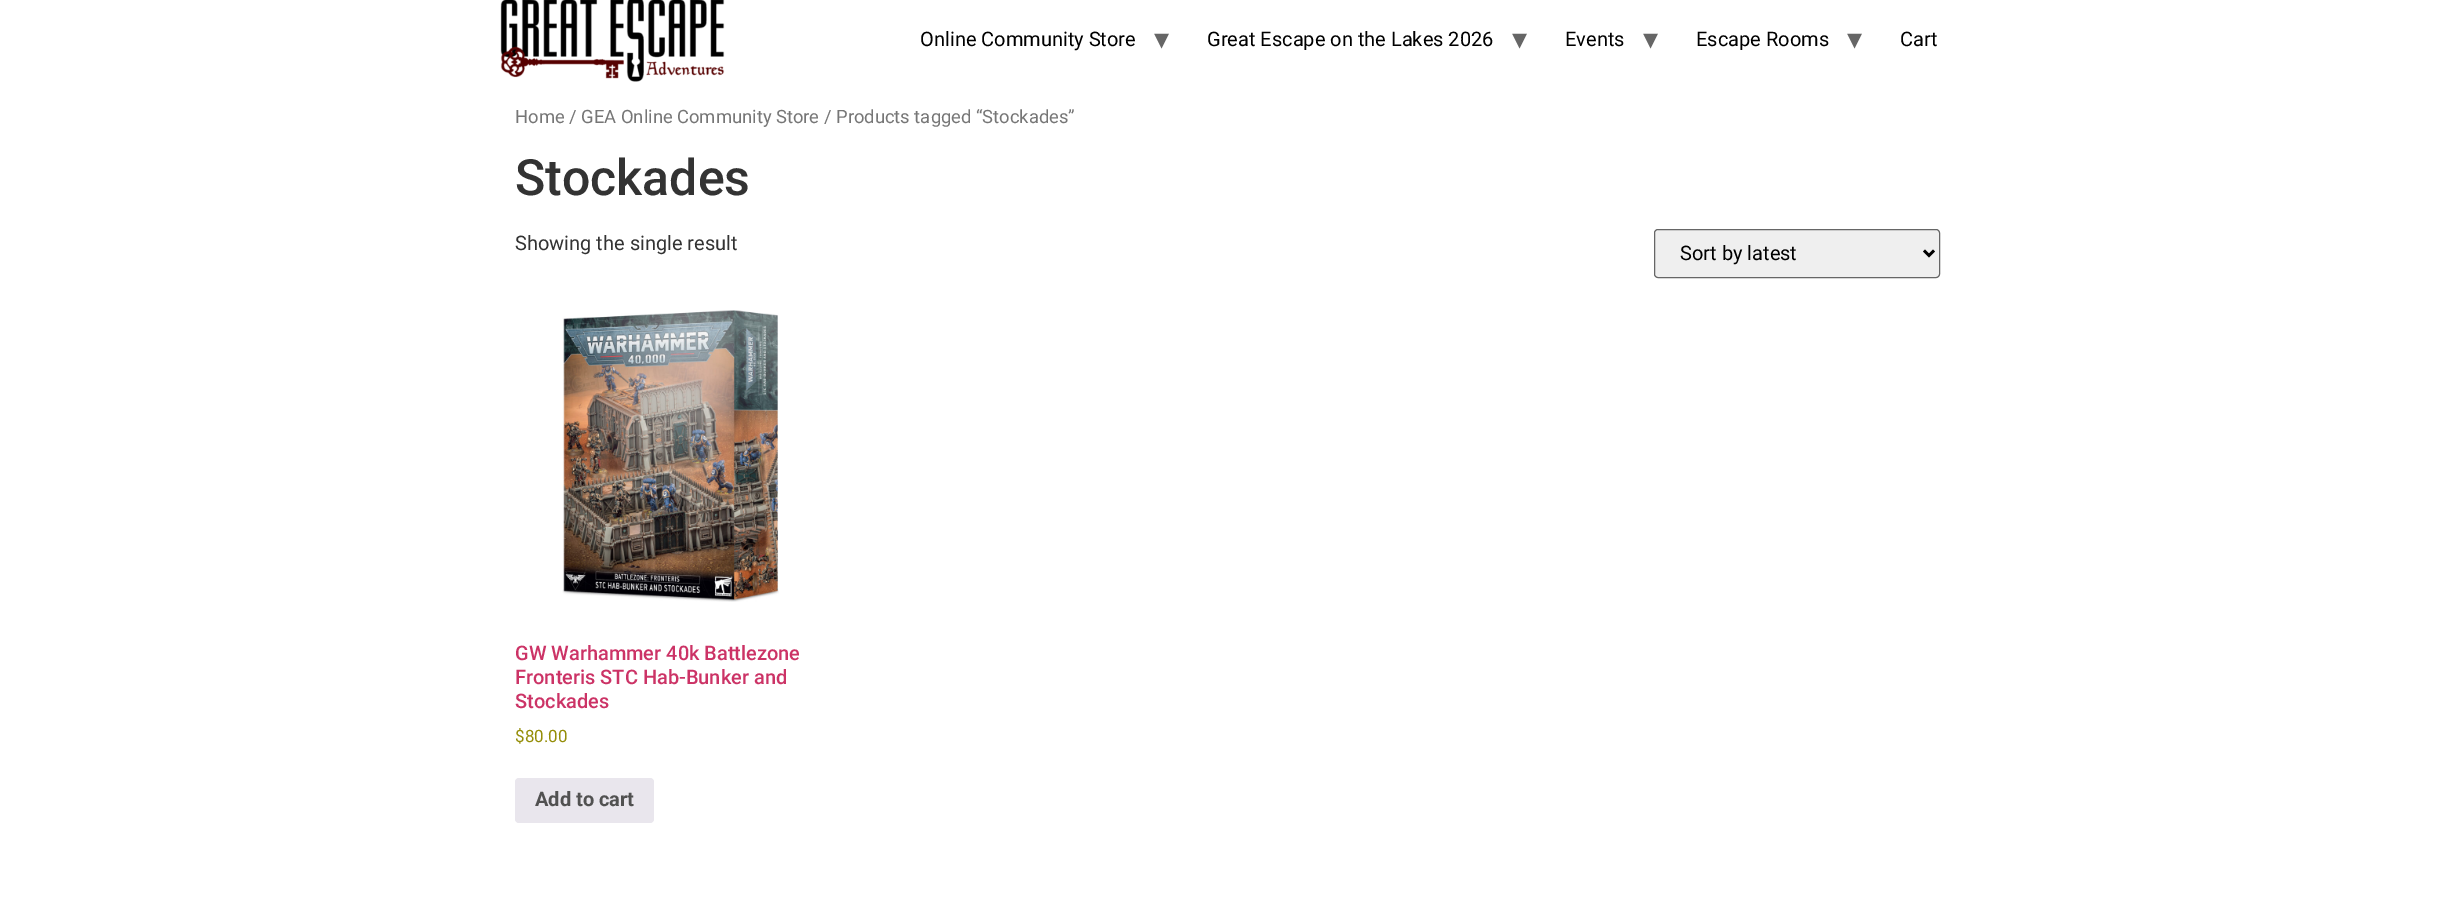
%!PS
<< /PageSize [2454 912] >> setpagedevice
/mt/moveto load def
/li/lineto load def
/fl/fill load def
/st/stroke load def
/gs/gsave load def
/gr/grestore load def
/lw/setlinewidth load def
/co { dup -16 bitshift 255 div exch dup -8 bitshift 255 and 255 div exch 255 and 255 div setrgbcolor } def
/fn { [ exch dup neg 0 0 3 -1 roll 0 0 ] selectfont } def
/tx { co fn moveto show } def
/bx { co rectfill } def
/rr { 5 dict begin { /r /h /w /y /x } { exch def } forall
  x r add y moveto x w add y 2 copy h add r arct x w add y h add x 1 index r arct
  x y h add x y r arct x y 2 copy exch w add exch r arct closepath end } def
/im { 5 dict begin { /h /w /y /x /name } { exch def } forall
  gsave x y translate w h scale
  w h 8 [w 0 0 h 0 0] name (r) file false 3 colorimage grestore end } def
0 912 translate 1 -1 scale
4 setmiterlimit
0 0 2454 912 16#FFFFFF bx
(media/1.raw) 500 0 225 82 im
16#EFEFEF co
1654.5 229.5 285 48 3.5 rr gs fl gr
16#666666 co
st
16#000000 co
2.5 lw
1924 250.5 mt 1929 255.5 li 1934 250.5 li st
(media/2.raw) 562 310 217 292 im
16#E9E6ED co
515 778 139 45 4 rr fl
(Online Community Store) 920 46 /Roboto-Regular 20 16#000000 tx
(▾) 1154 49 /DejaVuSans-Regular 30 16#666666 tx
(Great Escape on the Lakes 2026) 1207 46 /Roboto-Regular 20 16#000000 tx
(▾) 1512 49 /DejaVuSans-Regular 30 16#666666 tx
(Events) 1565 46 /Roboto-Regular 20 16#000000 tx
(▾) 1643 49 /DejaVuSans-Regular 30 16#666666 tx
(Escape Rooms) 1696 46 /Roboto-Regular 20 16#000000 tx
(▾) 1847 49 /DejaVuSans-Regular 30 16#666666 tx
(Cart) 1900 46 /Roboto-Regular 20 16#000000 tx
(Home / GEA Online Community Store / Products tagged “Stockades”) 515 123 /Roboto-Regular 18.4 16#767676 tx
(Stockades) 515 195 /Roboto-Medium 50 16#333333 tx
(Showing the single result) 515 250 /Roboto-Regular 20 16#333333 tx
(Sort by latest) 1680 260 /Roboto-Regular 20 16#000000 tx
(GW Warhammer 40k Battlezone) 515 660 /Roboto-Medium 20 16#CC3366 tx
(Fronteris STC Hab-Bunker and) 515 684 /Roboto-Medium 20 16#CC3366 tx
(Stockades) 515 708 /Roboto-Medium 20 16#CC3366 tx
($80.00) 515 742 /Roboto-Regular 17 16#958E09 tx
(Add to cart) 535 806 /Roboto-Bold 20 16#515151 tx
showpage
